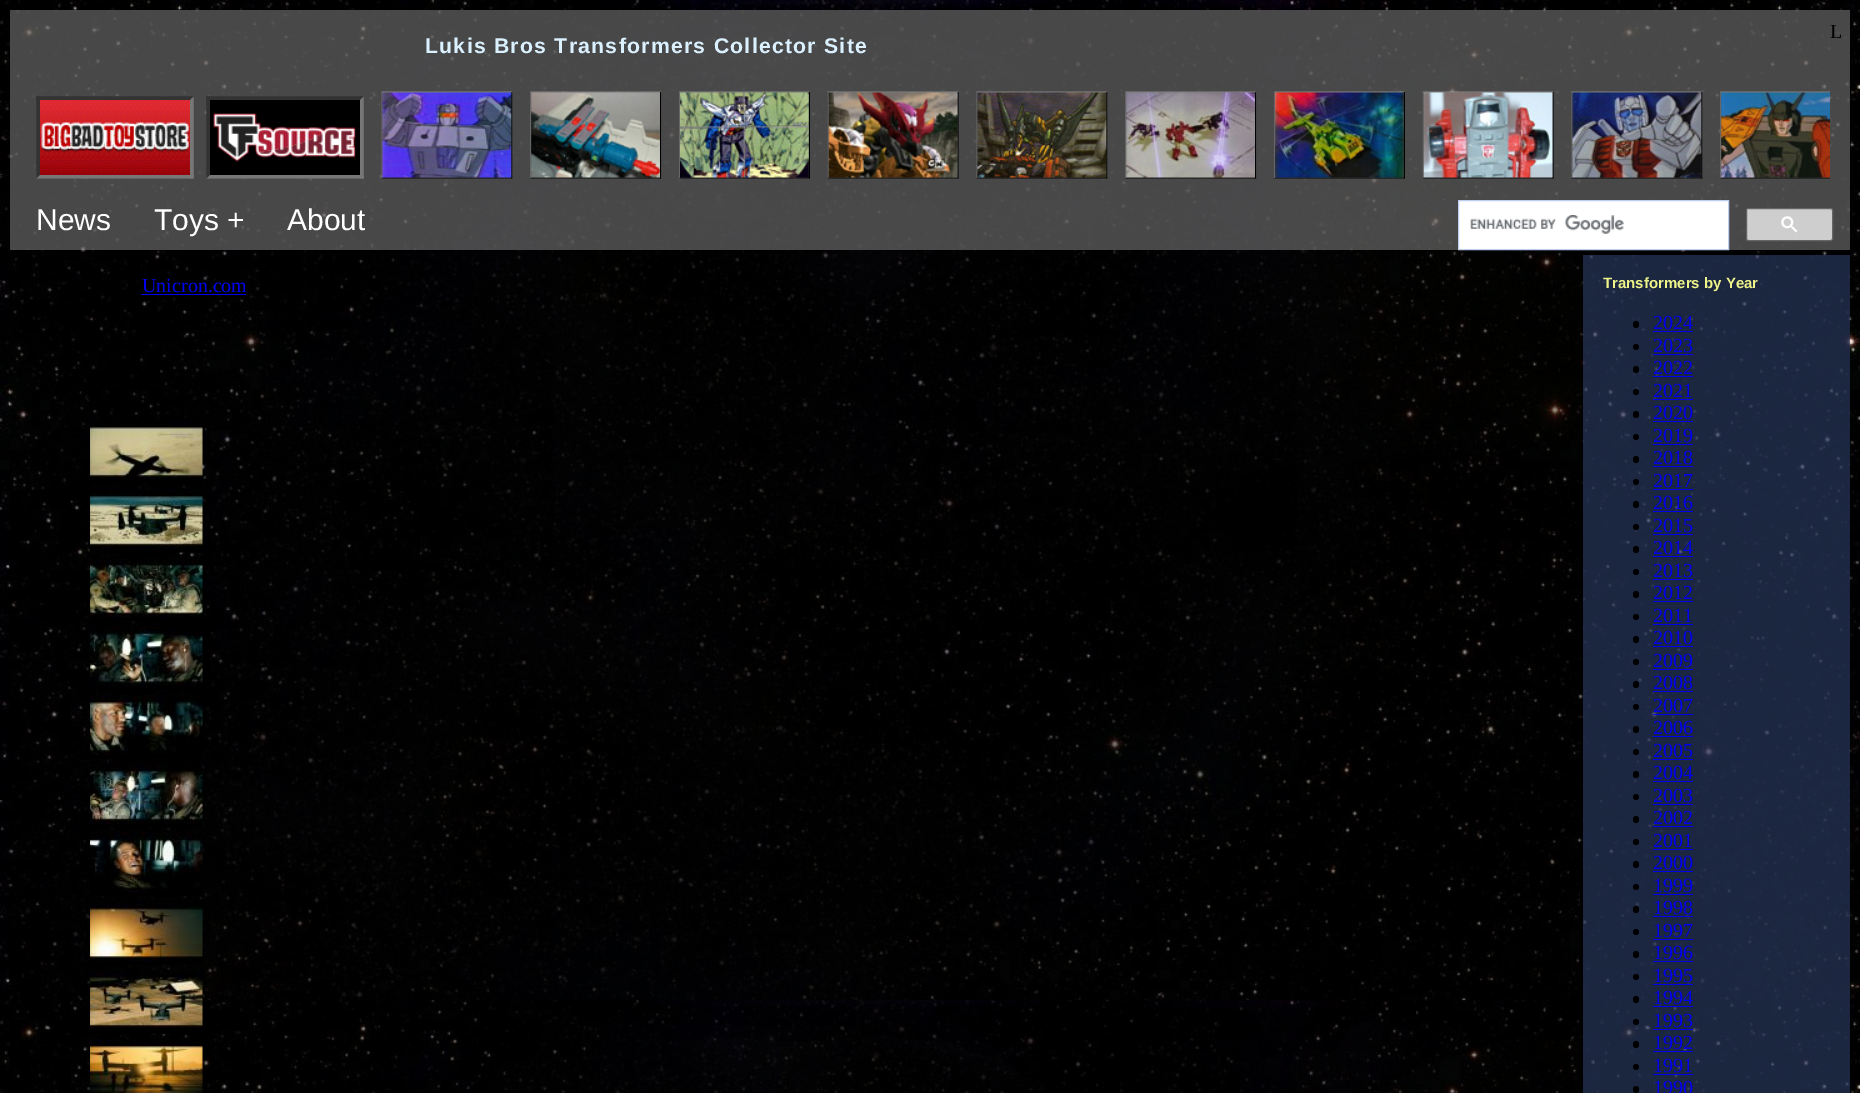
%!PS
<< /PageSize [1860 1093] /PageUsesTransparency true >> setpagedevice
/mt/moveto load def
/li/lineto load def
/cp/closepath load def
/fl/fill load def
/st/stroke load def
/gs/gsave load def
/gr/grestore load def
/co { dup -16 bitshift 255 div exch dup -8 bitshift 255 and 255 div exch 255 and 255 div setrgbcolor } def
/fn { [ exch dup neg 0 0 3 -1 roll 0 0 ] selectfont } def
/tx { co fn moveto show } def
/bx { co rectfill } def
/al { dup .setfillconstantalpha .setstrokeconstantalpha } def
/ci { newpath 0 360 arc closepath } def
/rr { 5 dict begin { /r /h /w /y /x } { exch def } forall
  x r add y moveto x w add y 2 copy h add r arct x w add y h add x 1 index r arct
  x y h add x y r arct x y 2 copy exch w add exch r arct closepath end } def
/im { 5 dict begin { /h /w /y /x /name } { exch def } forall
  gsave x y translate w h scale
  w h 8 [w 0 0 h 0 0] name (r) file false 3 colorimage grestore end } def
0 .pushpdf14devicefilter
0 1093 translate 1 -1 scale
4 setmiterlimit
0 0 1860 1093 16#FFFFFF bx
(media/1.raw) 0 0 1860 1093 im
0.6 al
10 10 1840 240 16#787878 bx
1 al
(media/2.raw) 36 91 1794 88 im
16#FFFFFF co
1458.5 200.5 mt 1728.5 200.5 li 1728.5 249.5 li 1458.5 249.5 li cp gs fl gr
16#BCCDF0 co
st
(media/3.raw) 1470 215 154 19 im
16#CECECE co
1746.5 208.5 86 32 2 rr gs fl gr
16#666666 co
st
(media/4.raw) 1781 216 17 17 im
141 294 105 1 16#0000EE bx
(media/5.raw) 90 420 113 64 im
16#000000 co
73 547 3 ci fl
(media/6.raw) 90 489 113 64 im
(media/7.raw) 90 557 113 65 im
70 681 6 7 3 rr fl
(media/8.raw) 90 626 113 64 im
73 753 3 ci fl
(media/9.raw) 90 695 113 64 im
73 822 3 ci fl
(media/10.raw) 90 764 113 64 im
73 891 3 ci fl
(media/11.raw) 90 832 113 65 im
70 956 6 7 3 rr fl
(media/12.raw) 90 901 113 64 im
(media/13.raw) 90 970 113 64 im
(media/14.raw) 90 1039 113 54 im
0.5 al
1583 255 267 838 16#364B7E bx
1 al
16#000000 co
1633 321 6 7 3 rr fl
1653 331 40 1 16#0000EE bx
16#000000 co
1636 347 3 ci fl
1653 354 40 1 16#0000EE bx
16#000000 co
1633 366 6 7 3 rr fl
1653 376 40 1 16#0000EE bx
16#000000 co
1636 392 3 ci fl
1653 399 40 1 16#0000EE bx
16#000000 co
1633 411 6 7 3 rr fl
1653 421 40 1 16#0000EE bx
16#000000 co
1636 437 3 ci fl
1653 444 40 1 16#0000EE bx
16#000000 co
1633 456 6 7 3 rr fl
1653 466 40 1 16#0000EE bx
16#000000 co
1636 482 3 ci fl
1653 489 40 1 16#0000EE bx
16#000000 co
1633 501 6 7 3 rr fl
1653 511 40 1 16#0000EE bx
16#000000 co
1636 527 3 ci fl
1653 534 40 1 16#0000EE bx
16#000000 co
1633 546 6 7 3 rr fl
1653 556 40 1 16#0000EE bx
16#000000 co
1636 572 3 ci fl
1653 579 40 1 16#0000EE bx
16#000000 co
1633 591 6 7 3 rr fl
1653 601 40 1 16#0000EE bx
16#000000 co
1636 617 3 ci fl
1653 624 40 1 16#0000EE bx
16#000000 co
1633 636 6 7 3 rr fl
1653 646 40 1 16#0000EE bx
16#000000 co
1636 662 3 ci fl
1653 669 40 1 16#0000EE bx
16#000000 co
1633 681 6 7 3 rr fl
1653 691 40 1 16#0000EE bx
16#000000 co
1636 707 3 ci fl
1653 714 40 1 16#0000EE bx
16#000000 co
1633 726 6 7 3 rr fl
1653 736 40 1 16#0000EE bx
16#000000 co
1636 752 3 ci fl
1653 759 40 1 16#0000EE bx
16#000000 co
1633 771 6 7 3 rr fl
1653 781 40 1 16#0000EE bx
16#000000 co
1636 797 3 ci fl
1653 804 40 1 16#0000EE bx
16#000000 co
1633 816 6 7 3 rr fl
1653 826 40 1 16#0000EE bx
16#000000 co
1636 842 3 ci fl
1653 849 40 1 16#0000EE bx
16#000000 co
1633 861 6 7 3 rr fl
1653 871 40 1 16#0000EE bx
16#000000 co
1636 887 3 ci fl
1653 894 40 1 16#0000EE bx
16#000000 co
1633 906 6 7 3 rr fl
1653 916 40 1 16#0000EE bx
16#000000 co
1636 932 3 ci fl
1653 939 40 1 16#0000EE bx
16#000000 co
1633 951 6 7 3 rr fl
1653 961 40 1 16#0000EE bx
16#000000 co
1636 977 3 ci fl
1653 984 40 1 16#0000EE bx
16#000000 co
1633 996 6 7 3 rr fl
1653 1006 40 1 16#0000EE bx
16#000000 co
1636 1022 3 ci fl
1653 1029 40 1 16#0000EE bx
16#000000 co
1633 1041 6 7 3 rr fl
1653 1051 40 1 16#0000EE bx
16#000000 co
1636 1067 3 ci fl
1653 1074 40 1 16#0000EE bx
16#000000 co
1633 1086 6 7 3 rr fl
(L) 1830 38 /LiberationSerif-Regular 20 16#000000 tx
/LiberationSans-Bold 21.25 fn
16#DBF1FF co
425 53 mt 1.25 0 (Lukis Bros Transformers Collector Site) ashow
(News) 36 230 /LiberationSans-Regular 30 16#FFFFFF tx
(Toys +) 154 230 /LiberationSans-Regular 30 16#FFFFFF tx
(About) 287 230 /LiberationSans-Regular 30 16#FFFFFF tx
(Unicron.com) 142 292 /LiberationSerif-Regular 20 16#0000EE tx
(Transformers by Year) 1603 288 /LiberationSans-Bold 15 16#EEF489 tx
(2024) 1653 329 /LiberationSerif-Regular 20 16#0000EE tx
(2023) 1653 352 /LiberationSerif-Regular 20 16#0000EE tx
(2022) 1653 374 /LiberationSerif-Regular 20 16#0000EE tx
(2021) 1653 397 /LiberationSerif-Regular 20 16#0000EE tx
(2020) 1653 419 /LiberationSerif-Regular 20 16#0000EE tx
(2019) 1653 442 /LiberationSerif-Regular 20 16#0000EE tx
(2018) 1653 464 /LiberationSerif-Regular 20 16#0000EE tx
(2017) 1653 487 /LiberationSerif-Regular 20 16#0000EE tx
(2016) 1653 509 /LiberationSerif-Regular 20 16#0000EE tx
(2015) 1653 532 /LiberationSerif-Regular 20 16#0000EE tx
(2014) 1653 554 /LiberationSerif-Regular 20 16#0000EE tx
(2013) 1653 577 /LiberationSerif-Regular 20 16#0000EE tx
(2012) 1653 599 /LiberationSerif-Regular 20 16#0000EE tx
(2011) 1653 622 /LiberationSerif-Regular 20 16#0000EE tx
(2010) 1653 644 /LiberationSerif-Regular 20 16#0000EE tx
(2009) 1653 667 /LiberationSerif-Regular 20 16#0000EE tx
(2008) 1653 689 /LiberationSerif-Regular 20 16#0000EE tx
(2007) 1653 712 /LiberationSerif-Regular 20 16#0000EE tx
(2006) 1653 734 /LiberationSerif-Regular 20 16#0000EE tx
(2005) 1653 757 /LiberationSerif-Regular 20 16#0000EE tx
(2004) 1653 779 /LiberationSerif-Regular 20 16#0000EE tx
(2003) 1653 802 /LiberationSerif-Regular 20 16#0000EE tx
(2002) 1653 824 /LiberationSerif-Regular 20 16#0000EE tx
(2001) 1653 847 /LiberationSerif-Regular 20 16#0000EE tx
(2000) 1653 869 /LiberationSerif-Regular 20 16#0000EE tx
(1999) 1653 892 /LiberationSerif-Regular 20 16#0000EE tx
(1998) 1653 914 /LiberationSerif-Regular 20 16#0000EE tx
(1997) 1653 937 /LiberationSerif-Regular 20 16#0000EE tx
(1996) 1653 959 /LiberationSerif-Regular 20 16#0000EE tx
(1995) 1653 982 /LiberationSerif-Regular 20 16#0000EE tx
(1994) 1653 1004 /LiberationSerif-Regular 20 16#0000EE tx
(1993) 1653 1027 /LiberationSerif-Regular 20 16#0000EE tx
(1992) 1653 1049 /LiberationSerif-Regular 20 16#0000EE tx
(1991) 1653 1072 /LiberationSerif-Regular 20 16#0000EE tx
(1990) 1653 1094 /LiberationSerif-Regular 20 16#0000EE tx
.poppdf14devicefilter showpage
